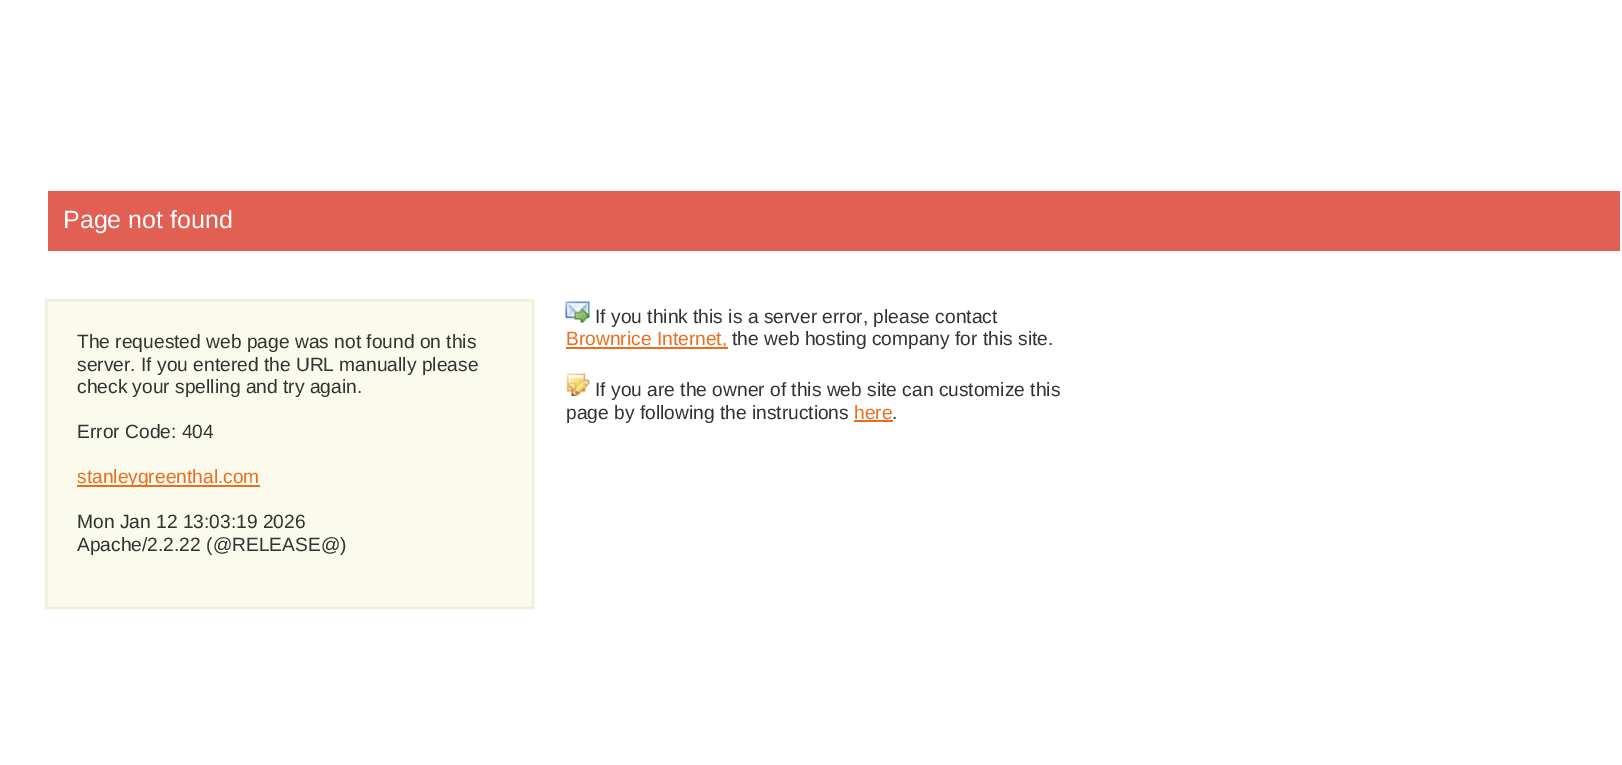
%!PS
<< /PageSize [1622 765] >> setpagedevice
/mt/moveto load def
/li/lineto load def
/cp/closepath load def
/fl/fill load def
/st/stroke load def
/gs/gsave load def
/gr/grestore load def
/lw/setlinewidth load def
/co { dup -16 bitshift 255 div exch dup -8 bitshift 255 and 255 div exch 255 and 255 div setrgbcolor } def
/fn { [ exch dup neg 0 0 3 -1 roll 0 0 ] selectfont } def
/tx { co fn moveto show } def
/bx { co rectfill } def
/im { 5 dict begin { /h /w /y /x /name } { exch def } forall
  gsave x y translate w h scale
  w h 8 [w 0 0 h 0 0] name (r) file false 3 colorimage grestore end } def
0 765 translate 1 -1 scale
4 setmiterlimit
0 0 1622 765 16#FFFFFF bx
48 191 1572 60 16#E25F53 bx
16#FAFAED co
46 300 mt 533 300 li 533 608 li 46 608 li cp gs fl gr
16#EEEEDD co
2 lw
st
77 485 183 2 16#EB6E1F bx
(media/1.raw) 565 301 25 22 im
566 347 162 2 16#EB6E1F bx
(media/2.raw) 566 373 24 23 im
854 420 39 2 16#EB6E1F bx
(Page not found) 63 228 /LiberationSans-Regular 25 16#FFFFFF tx
(The requested web page was not found on this) 77 348 /LiberationSans-Regular 19.2 16#333333 tx
(server. If you entered the URL manually please) 77 371 /LiberationSans-Regular 19.2 16#333333 tx
(check your spelling and try again.) 77 393 /LiberationSans-Regular 19.2 16#333333 tx
(Error Code: 404) 77 438 /LiberationSans-Regular 19.2 16#333333 tx
(stanleygreenthal.com) 77 483 /LiberationSans-Regular 19.2 16#EB6E1F tx
(Mon Jan 12 13:03:19 2026) 77 528 /LiberationSans-Regular 19.2 16#333333 tx
(Apache/2.2.22 \(@RELEASE@\)) 77 551 /LiberationSans-Regular 19.2 16#333333 tx
(If you think this is a server error, please contact) 595 323 /LiberationSans-Regular 19.2 16#333333 tx
(Brownrice Internet,) 566 345 /LiberationSans-Regular 19.2 16#EB6E1F tx
(the web hosting company for this site.) 732 345 /LiberationSans-Regular 19.2 16#333333 tx
(If you are the owner of this web site can customize this) 595 396 /LiberationSans-Regular 19.2 16#333333 tx
(page by following the instructions) 566 419 /LiberationSans-Regular 19.2 16#333333 tx
(here) 854 419 /LiberationSans-Regular 19.2 16#EB6E1F tx
(.) 892 419 /LiberationSans-Regular 19.2 16#333333 tx
showpage
